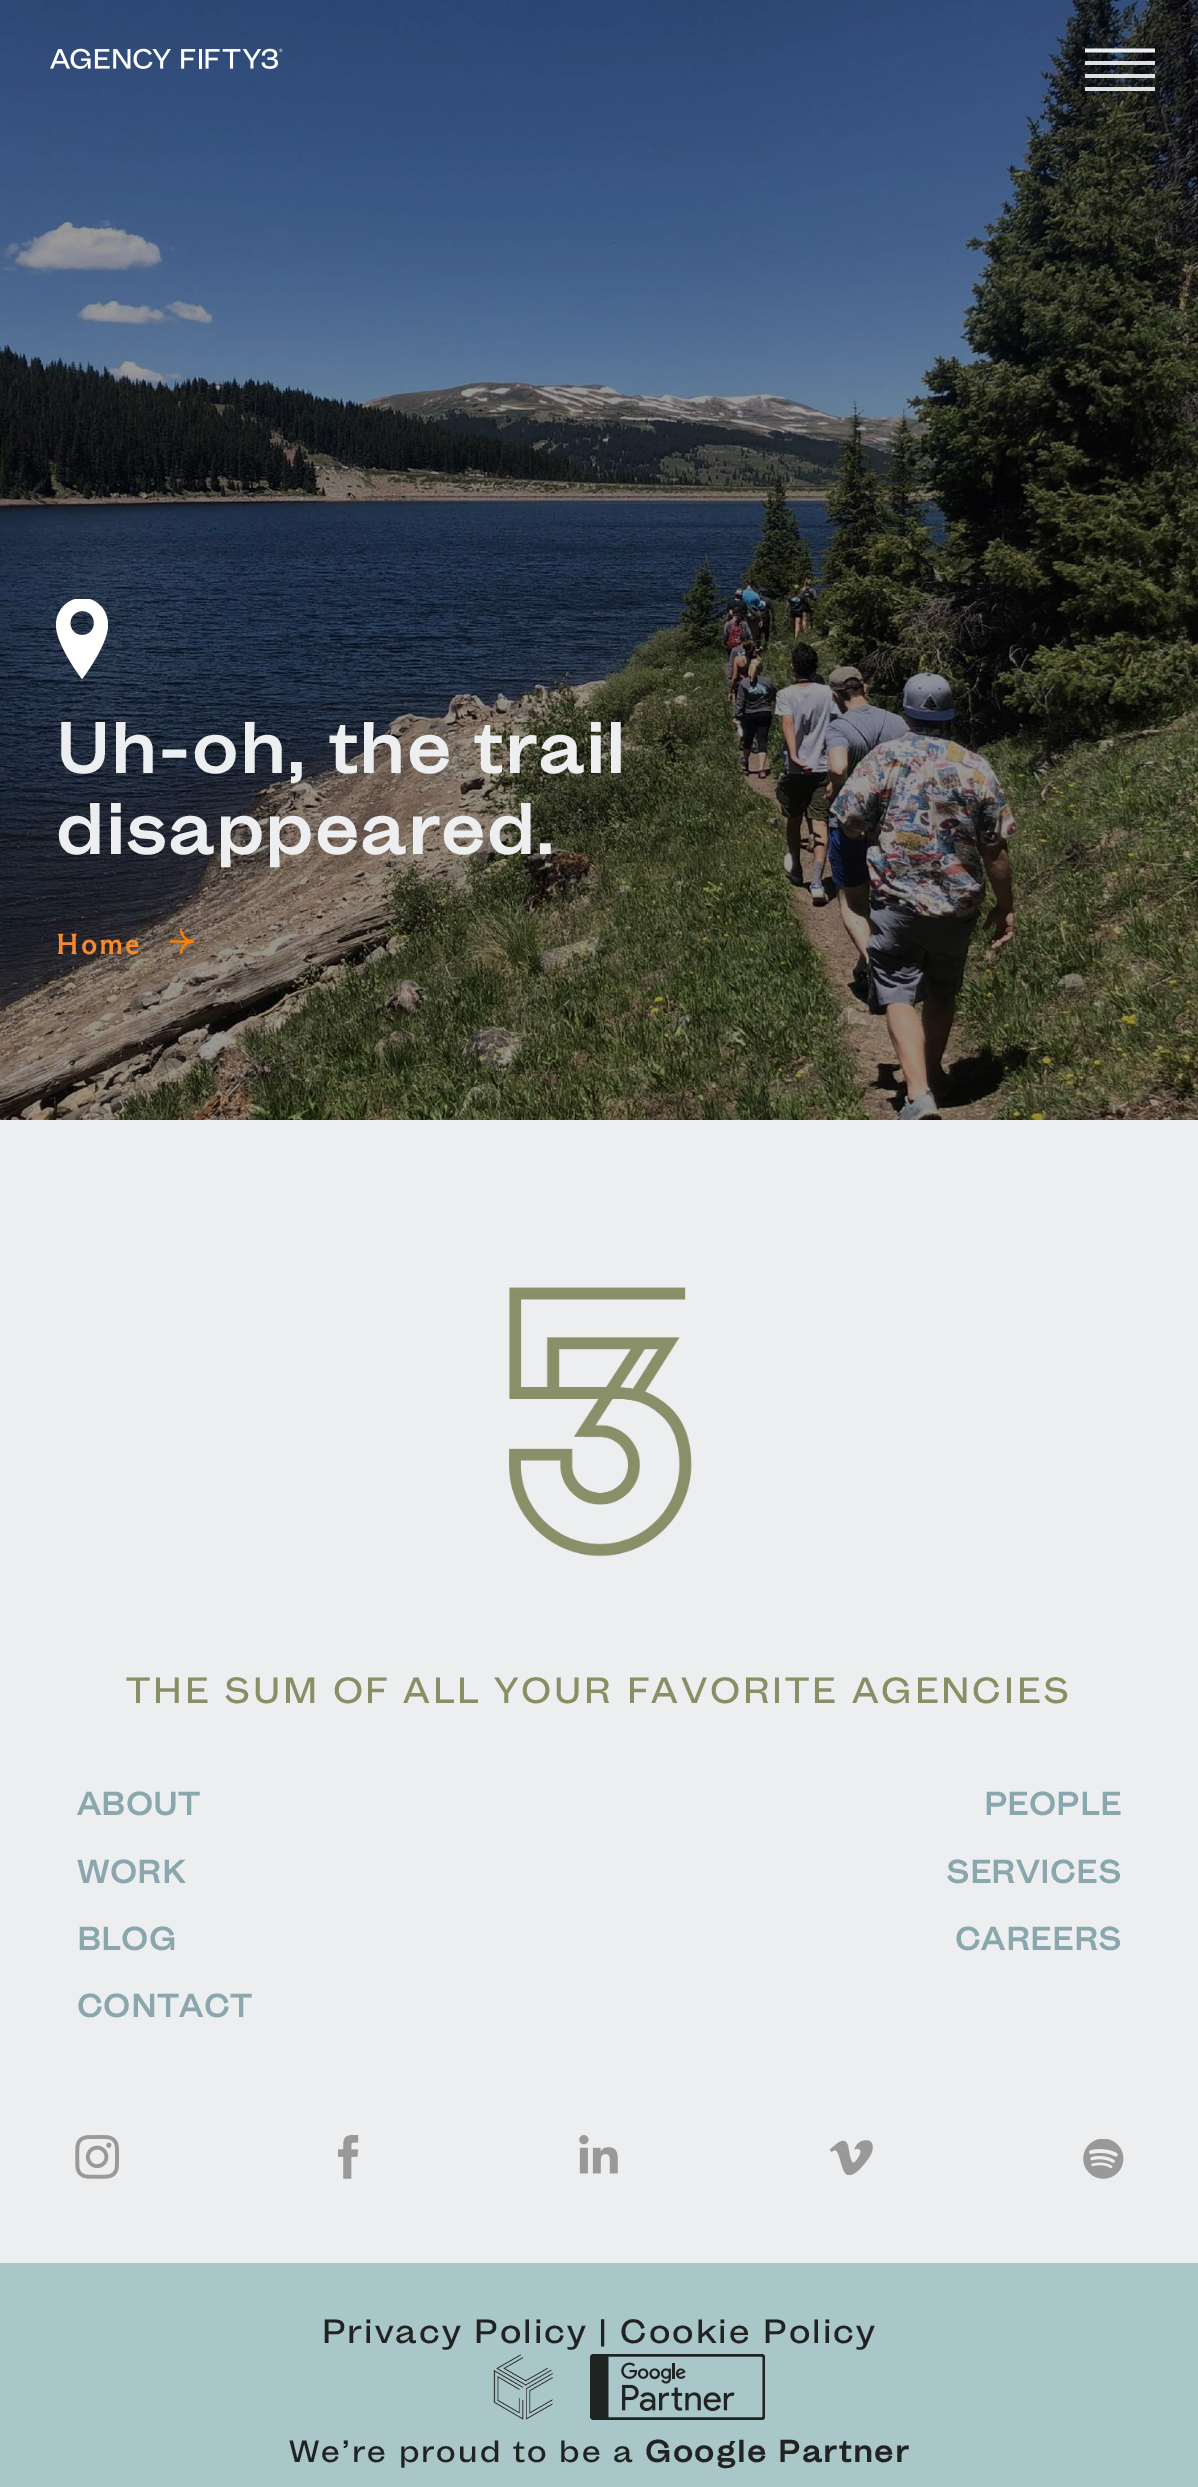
%!PS
<< /PageSize [1198 2487] /PageUsesTransparency true >> setpagedevice
/mt/moveto load def
/li/lineto load def
/ct/curveto load def
/cp/closepath load def
/fl/fill load def
/st/stroke load def
/gs/gsave load def
/gr/grestore load def
/lw/setlinewidth load def
/co { dup -16 bitshift 255 div exch dup -8 bitshift 255 and 255 div exch 255 and 255 div setrgbcolor } def
/fn { [ exch dup neg 0 0 3 -1 roll 0 0 ] selectfont } def
/bx { co rectfill } def
/al { dup .setfillconstantalpha .setstrokeconstantalpha } def
/im { 5 dict begin { /h /w /y /x /name } { exch def } forall
  gsave x y translate w h scale
  w h 8 [w 0 0 h 0 0] name (r) file false 3 colorimage grestore end } def
0 .pushpdf14devicefilter
0 2487 translate 1 -1 scale
4 setmiterlimit
0 0 1198 2487 16#EDEEEF bx
(media/2.raw) 0 0 1198 1120 im
(media/1.raw) 50 48 233 21 im
3.7 lw
1085 50.5 mt 1155 50.5 li st
0.93 al
1085 61 70 4 16#EDEEEF bx
1085 74 70 4 16#EDEEEF bx
1085 87 70 4 16#EDEEEF bx
gs
56 599 53 80 rectclip
1 al
16#FFFFFF co
82 598 mt 68 598 56 610 56 625 ct 56 645 82 679 82 679 ct 82 679 108 645 108 625 ct 108 610 97 598 82 598 ct cp 82 635 mt 67 635 66 612 82 611 ct 98 611 98 635 82 635 ct cp fl
gr
1 al
(media/3.raw) 170 929 24 25 im
(media/4.raw) 509 1287 183 270 im
(media/5.raw) 75 2135 44 44 im
(media/6.raw) 338 2135 21 44 im
(media/7.raw) 579 2135 39 39 im
(media/8.raw) 830 2140 43 35 im
(media/9.raw) 1083 2139 41 40 im
0 2263 1198 224 16#A9C6C9 bx
(media/10.raw) 493 2354 60 66 im
(media/11.raw) 590 2354 175 66 im
/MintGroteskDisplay-Bold 67.25 fn
16#EDEEEF co
56 773 mt 2.8 0 (Uh-oh, the trail) ashow
56 854 mt 2.8 0 (disappeared.) ashow
/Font-Bold 28 fn
16#F68A31 co
56 954 mt 2.8 0 (Home) ashow
/MintGroteskDisplay-Medium 35 fn
16#898F65 co
126 1703 mt 2.8 0 (THE SUM OF ALL YOUR FAVORITE AGENCIES) ashow
/MintGroteskDisplay-Bold 30.75 fn
16#8AA7AD co
77 1815 mt 1 0 (ABOUT) ashow
984 1815 mt 1 0 (PEOPLE) ashow
77 1883 mt 1 0 (WORK) ashow
946 1883 mt 1 0 (SERVICES) ashow
77 1950 mt 1 0 (BLOG) ashow
955 1950 mt 1 0 (CAREERS) ashow
77 2017 mt 1 0 (CONTACT) ashow
/MintGroteskDisplay-Medium 32.25 fn
16#212322 co
322 2343 mt 2.1 0 (Privacy Policy) ashow
/MintGroteskDisplay-Medium 29.4 fn
598 2343 mt 2.1 0 (|) ashow
/MintGroteskDisplay-Medium 32.25 fn
620 2343 mt 2.1 0 (Cookie Policy) ashow
/MintGroteskDisplay-Medium 29.4 fn
289 2462 mt 2.1 0 (We’re proud to be a) ashow
/MintGroteskDisplay-Bold 29.4 fn
645 2462 mt 2.1 0 (Google Partner) ashow
.poppdf14devicefilter showpage
